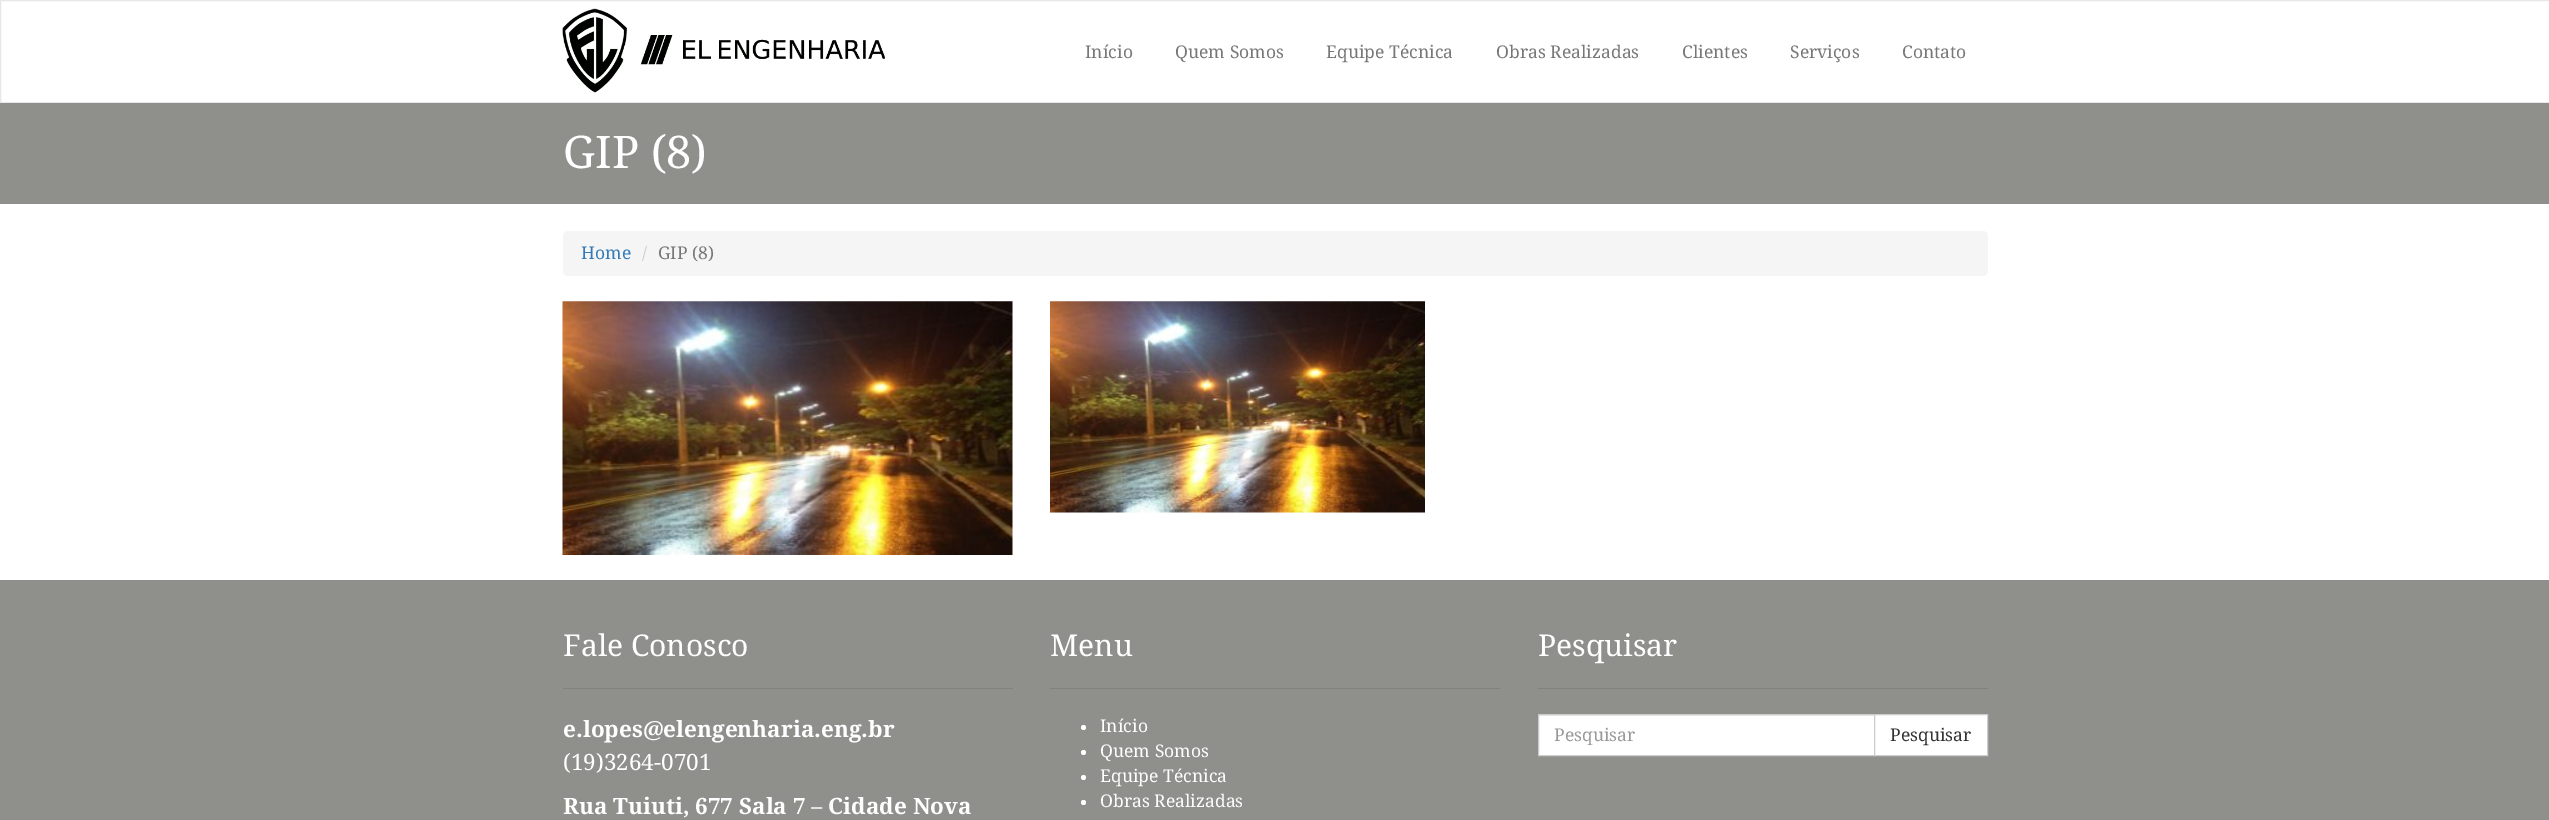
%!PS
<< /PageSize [2549 820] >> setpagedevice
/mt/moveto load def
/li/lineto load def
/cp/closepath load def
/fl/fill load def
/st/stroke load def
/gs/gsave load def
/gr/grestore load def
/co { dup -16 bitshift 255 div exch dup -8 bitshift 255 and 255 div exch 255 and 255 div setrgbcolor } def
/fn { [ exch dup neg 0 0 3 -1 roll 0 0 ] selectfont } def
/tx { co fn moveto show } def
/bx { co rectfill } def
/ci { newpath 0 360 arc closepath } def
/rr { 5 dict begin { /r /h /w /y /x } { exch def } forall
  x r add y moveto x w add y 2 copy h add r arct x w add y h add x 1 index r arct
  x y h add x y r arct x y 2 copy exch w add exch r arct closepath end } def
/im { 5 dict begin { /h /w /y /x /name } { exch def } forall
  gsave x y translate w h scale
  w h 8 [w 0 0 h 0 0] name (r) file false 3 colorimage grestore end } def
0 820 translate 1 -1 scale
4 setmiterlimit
0 0 2549 820 16#FFFFFF bx
16#E7E7E7 co
.5 .5 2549 102 rectstroke
(media/1.raw) 562 8 323 85 im
0 103 2549 101 16#8F908B bx
16#F5F5F5 co
563 231 1425 45 5 rr fl
(media/2.raw) 562 301 451 254 im
(media/3.raw) 1050 301 375 212 im
0 580 2549 240 16#8F908B bx
563 688 450 1 16#81827D bx
1050 688 450 1 16#81827D bx
16#FFFFFF co
1083.5 727.5 2.5 ci fl
1083.5 752.5 2.5 ci fl
1083.5 777.5 2.5 ci fl
1083.5 802.5 2.5 ci fl
1538 688 450 1 16#81827D bx
1539 716 335 39 16#FFFFFF bx
1539 715 335 1 16#ECECEC bx
16#CCCCCC co
1538.5 714.5 336 41 rectstroke
16#FFFFFF co
1874.5 714.5 mt 1987.5 714.5 li 1987.5 755.5 li 1874.5 755.5 li cp gs fl gr
16#CCCCCC co
st
(Início) 1085 58 /DroidSerif-Regular 17.5 16#777777 tx
(Quem Somos) 1175 58 /DroidSerif-Regular 17.5 16#777777 tx
(Equipe Técnica) 1326 58 /DroidSerif-Regular 17.5 16#777777 tx
(Obras Realizadas) 1496 58 /DroidSerif-Regular 17.5 16#777777 tx
(Clientes) 1682 58 /DroidSerif-Regular 17.5 16#777777 tx
(Serviços) 1790 58 /DroidSerif-Regular 17.5 16#777777 tx
(Contato) 1902 58 /DroidSerif-Regular 17.5 16#777777 tx
(GIP \(8\)) 563 168 /DroidSerif-Regular 45 16#FFFFFF tx
(Home) 581 259 /DroidSerif-Regular 17.5 16#337AB7 tx
(/) 642 259 /DroidSerif-Regular 17.5 16#CCCCCC tx
(GIP \(8\)) 658 259 /DroidSerif-Regular 17.5 16#777777 tx
(Fale Conosco) 563 656 /DroidSerif-Regular 30 16#FFFFFF tx
(e.lopes@elengenharia.eng.br) 563 737 /DroidSerif-Bold 22.5 16#FFFFFF tx
(\(19\)3264-0701) 563 770 /DroidSerif-Regular 22.5 16#FFFFFF tx
(Rua Tuiuti, 677 Sala 7 – Cidade Nova) 563 814 /DroidSerif-Bold 22.5 16#FFFFFF tx
(Menu) 1050 656 /DroidSerif-Regular 30 16#FFFFFF tx
(Início) 1100 732 /DroidSerif-Regular 17.5 16#FFFFFF tx
(Quem Somos) 1100 757 /DroidSerif-Regular 17.5 16#FFFFFF tx
(Equipe Técnica) 1100 782 /DroidSerif-Regular 17.5 16#FFFFFF tx
(Obras Realizadas) 1100 807 /DroidSerif-Regular 17.5 16#FFFFFF tx
(Pesquisar) 1538 656 /DroidSerif-Regular 30 16#FFFFFF tx
gs
1554 725 305 20 rectclip
(Pesquisar) 1554 741 /DroidSerif-Regular 17.5 16#999999 tx
gr
(Pesquisar) 1890 741 /DroidSerif-Regular 17.5 16#333333 tx
showpage
